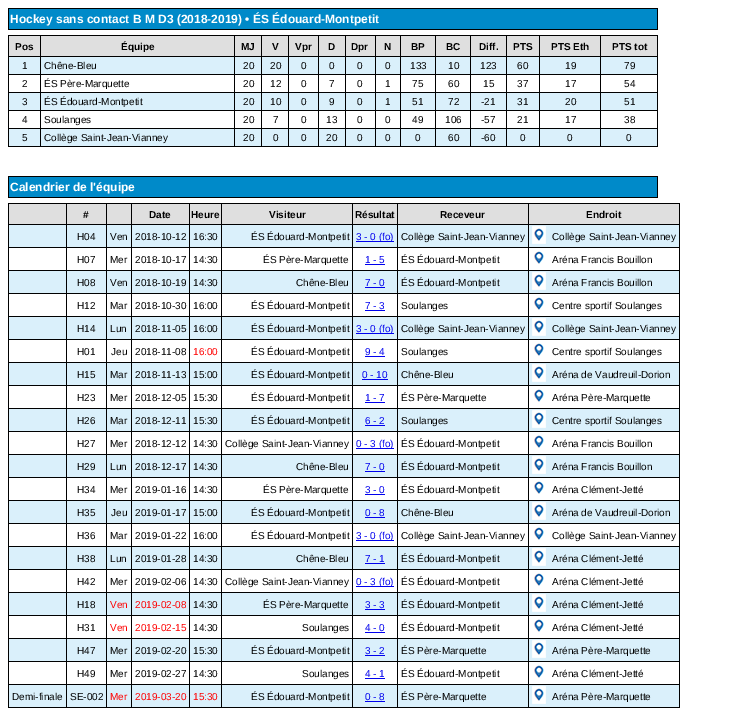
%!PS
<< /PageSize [753 715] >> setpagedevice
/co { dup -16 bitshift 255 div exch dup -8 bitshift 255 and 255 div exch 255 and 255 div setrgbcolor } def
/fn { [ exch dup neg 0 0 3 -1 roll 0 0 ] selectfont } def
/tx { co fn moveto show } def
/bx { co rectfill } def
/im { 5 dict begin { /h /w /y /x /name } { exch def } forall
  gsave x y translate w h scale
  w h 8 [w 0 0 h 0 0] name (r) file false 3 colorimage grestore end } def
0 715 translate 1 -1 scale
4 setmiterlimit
0 0 753 715 16#FFFFFF bx
8 8 650 1 16#000000 bx
657 8 1 22 16#000000 bx
8 29 650 1 16#000000 bx
8 8 1 22 16#000000 bx
9 9 648 20 16#008AC9 bx
8 35 650 1 16#000000 bx
657 35 1 112 16#000000 bx
8 146 650 1 16#000000 bx
8 35 1 112 16#000000 bx
9 36 31 20 16#DFDFDF bx
41 36 193 20 16#DFDFDF bx
235 36 26 20 16#DFDFDF bx
262 36 26 20 16#DFDFDF bx
289 36 29 20 16#DFDFDF bx
319 36 26 20 16#DFDFDF bx
346 36 29 20 16#DFDFDF bx
376 36 24 20 16#DFDFDF bx
401 36 34 20 16#DFDFDF bx
436 36 34 20 16#DFDFDF bx
471 36 35 20 16#DFDFDF bx
507 36 32 20 16#DFDFDF bx
540 36 60 20 16#DFDFDF bx
601 36 56 20 16#DFDFDF bx
8 56 650 1 16#000000 bx
9 57 31 17 16#DAF0FB bx
41 57 193 17 16#DAF0FB bx
235 57 26 17 16#DAF0FB bx
262 57 26 17 16#DAF0FB bx
289 57 29 17 16#DAF0FB bx
319 57 26 17 16#DAF0FB bx
346 57 29 17 16#DAF0FB bx
376 57 24 17 16#DAF0FB bx
401 57 34 17 16#DAF0FB bx
436 57 34 17 16#DAF0FB bx
471 57 35 17 16#DAF0FB bx
507 57 32 17 16#DAF0FB bx
540 57 60 17 16#DAF0FB bx
601 57 56 17 16#DAF0FB bx
8 74 650 1 16#000000 bx
8 92 650 1 16#000000 bx
9 93 31 17 16#DAF0FB bx
41 93 193 17 16#DAF0FB bx
235 93 26 17 16#DAF0FB bx
262 93 26 17 16#DAF0FB bx
289 93 29 17 16#DAF0FB bx
319 93 26 17 16#DAF0FB bx
346 93 29 17 16#DAF0FB bx
376 93 24 17 16#DAF0FB bx
401 93 34 17 16#DAF0FB bx
436 93 34 17 16#DAF0FB bx
471 93 35 17 16#DAF0FB bx
507 93 32 17 16#DAF0FB bx
540 93 60 17 16#DAF0FB bx
601 93 56 17 16#DAF0FB bx
8 110 650 1 16#000000 bx
8 128 650 1 16#000000 bx
9 129 31 17 16#DAF0FB bx
41 129 193 17 16#DAF0FB bx
40 35 1 112 16#000000 bx
235 129 26 17 16#DAF0FB bx
234 35 1 112 16#000000 bx
262 129 26 17 16#DAF0FB bx
261 35 1 112 16#000000 bx
289 129 29 17 16#DAF0FB bx
288 35 1 112 16#000000 bx
319 129 26 17 16#DAF0FB bx
318 35 1 112 16#000000 bx
346 129 29 17 16#DAF0FB bx
345 35 1 112 16#000000 bx
376 129 24 17 16#DAF0FB bx
375 35 1 112 16#000000 bx
401 129 34 17 16#DAF0FB bx
400 35 1 112 16#000000 bx
436 129 34 17 16#DAF0FB bx
435 35 1 112 16#000000 bx
471 129 35 17 16#DAF0FB bx
470 35 1 112 16#000000 bx
507 129 32 17 16#DAF0FB bx
506 35 1 112 16#000000 bx
540 129 60 17 16#DAF0FB bx
539 35 1 112 16#000000 bx
601 129 56 17 16#DAF0FB bx
600 35 1 112 16#000000 bx
8 176 650 1 16#000000 bx
657 176 1 22 16#000000 bx
8 197 650 1 16#000000 bx
8 176 1 22 16#000000 bx
9 177 648 20 16#008AC9 bx
8 203 672 1 16#000000 bx
679 203 1 505 16#000000 bx
8 707 672 1 16#000000 bx
8 203 1 505 16#000000 bx
9 204 57 20 16#DFDFDF bx
67 204 39 20 16#DFDFDF bx
107 204 24 20 16#DFDFDF bx
132 204 57 20 16#DFDFDF bx
190 204 31 20 16#DFDFDF bx
222 204 130 20 16#DFDFDF bx
353 204 44 20 16#DFDFDF bx
398 204 130 20 16#DFDFDF bx
529 204 150 20 16#DFDFDF bx
8 224 672 1 16#000000 bx
9 225 57 22 16#DAF0FB bx
222 225 130 22 16#DAF0FB bx
353 225 44 22 16#DAF0FB bx
356 241 38 1 16#0000EE bx
398 225 130 22 16#DAF0FB bx
529 225 150 22 16#DAF0FB bx
(media/1.raw) 532 226 14 18 im
67 225 39 22 16#DAF0FB bx
107 225 24 22 16#DAF0FB bx
132 225 57 22 16#DAF0FB bx
190 225 31 22 16#DAF0FB bx
8 247 672 1 16#000000 bx
365 264 20 1 16#0000EE bx
(media/2.raw) 534 251 10 13 im
8 270 672 1 16#000000 bx
9 271 57 22 16#DAF0FB bx
222 271 130 22 16#DAF0FB bx
398 271 130 22 16#DAF0FB bx
529 271 150 22 16#DAF0FB bx
(media/1.raw) 532 272 14 18 im
67 271 39 22 16#DAF0FB bx
107 271 24 22 16#DAF0FB bx
132 271 57 22 16#DAF0FB bx
190 271 31 22 16#DAF0FB bx
353 271 44 22 16#DAF0FB bx
365 287 20 1 16#0000EE bx
8 293 672 1 16#000000 bx
365 310 20 1 16#0000EE bx
(media/2.raw) 534 297 10 13 im
8 316 672 1 16#000000 bx
9 317 57 22 16#DAF0FB bx
222 317 130 22 16#DAF0FB bx
353 317 44 22 16#DAF0FB bx
356 333 38 1 16#0000EE bx
398 317 130 22 16#DAF0FB bx
529 317 150 22 16#DAF0FB bx
(media/1.raw) 532 318 14 18 im
67 317 39 22 16#DAF0FB bx
107 317 24 22 16#DAF0FB bx
132 317 57 22 16#DAF0FB bx
190 317 31 22 16#DAF0FB bx
8 339 672 1 16#000000 bx
365 356 20 1 16#0000EE bx
(media/2.raw) 534 343 10 13 im
8 362 672 1 16#000000 bx
9 363 57 22 16#DAF0FB bx
222 363 130 22 16#DAF0FB bx
398 363 130 22 16#DAF0FB bx
529 363 150 22 16#DAF0FB bx
(media/1.raw) 532 364 14 18 im
67 363 39 22 16#DAF0FB bx
107 363 24 22 16#DAF0FB bx
132 363 57 22 16#DAF0FB bx
190 363 31 22 16#DAF0FB bx
353 363 44 22 16#DAF0FB bx
362 379 26 1 16#0000EE bx
8 385 672 1 16#000000 bx
365 402 20 1 16#0000EE bx
(media/2.raw) 534 389 10 13 im
8 408 672 1 16#000000 bx
9 409 57 22 16#DAF0FB bx
222 409 130 22 16#DAF0FB bx
398 409 130 22 16#DAF0FB bx
529 409 150 22 16#DAF0FB bx
(media/1.raw) 532 410 14 18 im
67 409 39 22 16#DAF0FB bx
107 409 24 22 16#DAF0FB bx
132 409 57 22 16#DAF0FB bx
190 409 31 22 16#DAF0FB bx
353 409 44 22 16#DAF0FB bx
365 425 20 1 16#0000EE bx
8 431 672 1 16#000000 bx
356 448 38 1 16#0000EE bx
(media/2.raw) 534 435 10 13 im
8 454 672 1 16#000000 bx
9 455 57 22 16#DAF0FB bx
222 455 130 22 16#DAF0FB bx
398 455 130 22 16#DAF0FB bx
529 455 150 22 16#DAF0FB bx
(media/1.raw) 532 456 14 18 im
67 455 39 22 16#DAF0FB bx
107 455 24 22 16#DAF0FB bx
132 455 57 22 16#DAF0FB bx
190 455 31 22 16#DAF0FB bx
353 455 44 22 16#DAF0FB bx
365 471 20 1 16#0000EE bx
8 477 672 1 16#000000 bx
365 494 20 1 16#0000EE bx
(media/2.raw) 534 481 10 13 im
8 500 672 1 16#000000 bx
9 501 57 22 16#DAF0FB bx
222 501 130 22 16#DAF0FB bx
398 501 130 22 16#DAF0FB bx
529 501 150 22 16#DAF0FB bx
(media/1.raw) 532 502 14 18 im
67 501 39 22 16#DAF0FB bx
107 501 24 22 16#DAF0FB bx
132 501 57 22 16#DAF0FB bx
190 501 31 22 16#DAF0FB bx
353 501 44 22 16#DAF0FB bx
365 517 20 1 16#0000EE bx
8 523 672 1 16#000000 bx
356 540 38 1 16#0000EE bx
(media/2.raw) 534 527 10 13 im
8 546 672 1 16#000000 bx
9 547 57 22 16#DAF0FB bx
222 547 130 22 16#DAF0FB bx
398 547 130 22 16#DAF0FB bx
529 547 150 22 16#DAF0FB bx
(media/1.raw) 532 548 14 18 im
67 547 39 22 16#DAF0FB bx
107 547 24 22 16#DAF0FB bx
132 547 57 22 16#DAF0FB bx
190 547 31 22 16#DAF0FB bx
353 547 44 22 16#DAF0FB bx
365 563 20 1 16#0000EE bx
8 569 672 1 16#000000 bx
356 586 38 1 16#0000EE bx
(media/2.raw) 534 573 10 13 im
8 592 672 1 16#000000 bx
9 593 57 22 16#DAF0FB bx
222 593 130 22 16#DAF0FB bx
398 593 130 22 16#DAF0FB bx
529 593 150 22 16#DAF0FB bx
(media/1.raw) 532 594 14 18 im
67 593 39 22 16#DAF0FB bx
107 593 24 22 16#DAF0FB bx
132 593 57 22 16#DAF0FB bx
190 593 31 22 16#DAF0FB bx
353 593 44 22 16#DAF0FB bx
365 609 20 1 16#0000EE bx
8 615 672 1 16#000000 bx
365 632 20 1 16#0000EE bx
(media/2.raw) 534 619 10 13 im
8 638 672 1 16#000000 bx
9 639 57 22 16#DAF0FB bx
222 639 130 22 16#DAF0FB bx
398 639 130 22 16#DAF0FB bx
529 639 150 22 16#DAF0FB bx
(media/1.raw) 532 640 14 18 im
67 639 39 22 16#DAF0FB bx
107 639 24 22 16#DAF0FB bx
132 639 57 22 16#DAF0FB bx
190 639 31 22 16#DAF0FB bx
353 639 44 22 16#DAF0FB bx
365 655 20 1 16#0000EE bx
8 661 672 1 16#000000 bx
365 678 20 1 16#0000EE bx
(media/2.raw) 534 665 10 13 im
8 684 672 1 16#000000 bx
9 685 57 22 16#DAF0FB bx
222 685 130 22 16#DAF0FB bx
221 203 1 505 16#000000 bx
398 685 130 22 16#DAF0FB bx
397 203 1 505 16#000000 bx
529 685 150 22 16#DAF0FB bx
528 203 1 505 16#000000 bx
(media/1.raw) 532 686 14 18 im
67 685 39 22 16#DAF0FB bx
66 203 1 505 16#000000 bx
107 685 24 22 16#DAF0FB bx
106 203 1 505 16#000000 bx
132 685 57 22 16#DAF0FB bx
131 203 1 505 16#000000 bx
190 685 31 22 16#DAF0FB bx
189 203 1 505 16#000000 bx
353 685 44 22 16#DAF0FB bx
352 203 1 505 16#000000 bx
365 701 20 1 16#0000EE bx
(Hockey sans contact B M D3 \(2018-2019\) • ÉS Édouard-Montpetit) 10 23 /LiberationSans-Bold 12 16#FFFFFF tx
(Pos) 15 50 /LiberationSans-Bold 10 16#000000 tx
(Équipe) 121 50 /LiberationSans-Bold 10 16#000000 tx
(MJ) 241 50 /LiberationSans-Bold 10 16#000000 tx
(V) 272 50 /LiberationSans-Bold 10 16#000000 tx
(Vpr) 295 50 /LiberationSans-Bold 10 16#000000 tx
(D) 328 50 /LiberationSans-Bold 10 16#000000 tx
(Dpr) 351 50 /LiberationSans-Bold 10 16#000000 tx
(N) 384 50 /LiberationSans-Bold 10 16#000000 tx
(BP) 411 50 /LiberationSans-Bold 10 16#000000 tx
(BC) 446 50 /LiberationSans-Bold 10 16#000000 tx
(Diff.) 479 50 /LiberationSans-Bold 10 16#000000 tx
(PTS) 513 50 /LiberationSans-Bold 10 16#000000 tx
(PTS Eth) 551 50 /LiberationSans-Bold 10 16#000000 tx
(PTS tot) 612 50 /LiberationSans-Bold 10 16#000000 tx
(1) 22 69 /LiberationSans-Regular 10 16#000000 tx
(Chêne-Bleu) 44 69 /LiberationSans-Regular 10 16#000000 tx
(20) 243 69 /LiberationSans-Regular 10 16#000000 tx
(20) 270 69 /LiberationSans-Regular 10 16#000000 tx
(0) 301 69 /LiberationSans-Regular 10 16#000000 tx
(0) 329 69 /LiberationSans-Regular 10 16#000000 tx
(0) 357 69 /LiberationSans-Regular 10 16#000000 tx
(0) 385 69 /LiberationSans-Regular 10 16#000000 tx
(133) 410 69 /LiberationSans-Regular 10 16#000000 tx
(10) 448 69 /LiberationSans-Regular 10 16#000000 tx
(123) 480 69 /LiberationSans-Regular 10 16#000000 tx
(60) 517 69 /LiberationSans-Regular 10 16#000000 tx
(19) 565 69 /LiberationSans-Regular 10 16#000000 tx
(79) 624 69 /LiberationSans-Regular 10 16#000000 tx
(2) 22 87 /LiberationSans-Regular 10 16#000000 tx
(ÉS Père-Marquette) 44 87 /LiberationSans-Regular 10 16#000000 tx
(20) 243 87 /LiberationSans-Regular 10 16#000000 tx
(12) 270 87 /LiberationSans-Regular 10 16#000000 tx
(0) 301 87 /LiberationSans-Regular 10 16#000000 tx
(7) 329 87 /LiberationSans-Regular 10 16#000000 tx
(0) 357 87 /LiberationSans-Regular 10 16#000000 tx
(1) 385 87 /LiberationSans-Regular 10 16#000000 tx
(75) 412 87 /LiberationSans-Regular 10 16#000000 tx
(60) 448 87 /LiberationSans-Regular 10 16#000000 tx
(15) 483 87 /LiberationSans-Regular 10 16#000000 tx
(37) 517 87 /LiberationSans-Regular 10 16#000000 tx
(17) 565 87 /LiberationSans-Regular 10 16#000000 tx
(54) 624 87 /LiberationSans-Regular 10 16#000000 tx
(3) 22 105 /LiberationSans-Regular 10 16#000000 tx
(ÉS Édouard-Montpetit) 44 105 /LiberationSans-Regular 10 16#000000 tx
(20) 243 105 /LiberationSans-Regular 10 16#000000 tx
(10) 270 105 /LiberationSans-Regular 10 16#000000 tx
(0) 301 105 /LiberationSans-Regular 10 16#000000 tx
(9) 329 105 /LiberationSans-Regular 10 16#000000 tx
(0) 357 105 /LiberationSans-Regular 10 16#000000 tx
(1) 385 105 /LiberationSans-Regular 10 16#000000 tx
(51) 412 105 /LiberationSans-Regular 10 16#000000 tx
(72) 448 105 /LiberationSans-Regular 10 16#000000 tx
(-21) 481 105 /LiberationSans-Regular 10 16#000000 tx
(31) 517 105 /LiberationSans-Regular 10 16#000000 tx
(20) 565 105 /LiberationSans-Regular 10 16#000000 tx
(51) 624 105 /LiberationSans-Regular 10 16#000000 tx
(4) 22 123 /LiberationSans-Regular 10 16#000000 tx
(Soulanges) 44 123 /LiberationSans-Regular 10 16#000000 tx
(20) 243 123 /LiberationSans-Regular 10 16#000000 tx
(7) 273 123 /LiberationSans-Regular 10 16#000000 tx
(0) 301 123 /LiberationSans-Regular 10 16#000000 tx
(13) 326 123 /LiberationSans-Regular 10 16#000000 tx
(0) 357 123 /LiberationSans-Regular 10 16#000000 tx
(0) 385 123 /LiberationSans-Regular 10 16#000000 tx
(49) 412 123 /LiberationSans-Regular 10 16#000000 tx
(106) 445 123 /LiberationSans-Regular 10 16#000000 tx
(-57) 481 123 /LiberationSans-Regular 10 16#000000 tx
(21) 517 123 /LiberationSans-Regular 10 16#000000 tx
(17) 565 123 /LiberationSans-Regular 10 16#000000 tx
(38) 624 123 /LiberationSans-Regular 10 16#000000 tx
(5) 22 141 /LiberationSans-Regular 10 16#000000 tx
(Collège Saint-Jean-Vianney) 44 141 /LiberationSans-Regular 10 16#000000 tx
(20) 243 141 /LiberationSans-Regular 10 16#000000 tx
(0) 273 141 /LiberationSans-Regular 10 16#000000 tx
(0) 301 141 /LiberationSans-Regular 10 16#000000 tx
(20) 326 141 /LiberationSans-Regular 10 16#000000 tx
(0) 357 141 /LiberationSans-Regular 10 16#000000 tx
(0) 385 141 /LiberationSans-Regular 10 16#000000 tx
(0) 415 141 /LiberationSans-Regular 10 16#000000 tx
(60) 448 141 /LiberationSans-Regular 10 16#000000 tx
(-60) 481 141 /LiberationSans-Regular 10 16#000000 tx
(0) 520 141 /LiberationSans-Regular 10 16#000000 tx
(0) 567 141 /LiberationSans-Regular 10 16#000000 tx
(0) 626 141 /LiberationSans-Regular 10 16#000000 tx
(Calendrier de l'équipe) 10 191 /LiberationSans-Bold 12 16#FFFFFF tx
(#) 83 218 /LiberationSans-Bold 10 16#000000 tx
(Date) 149 218 /LiberationSans-Bold 10 16#000000 tx
(Heure) 191 218 /LiberationSans-Bold 10 16#000000 tx
(Visiteur) 269 218 /LiberationSans-Bold 10 16#000000 tx
(Résultat) 355 218 /LiberationSans-Bold 10 16#000000 tx
(Receveur) 440 218 /LiberationSans-Bold 10 16#000000 tx
(Endroit) 586 218 /LiberationSans-Bold 10 16#000000 tx
(ÉS Édouard-Montpetit) 251 240 /LiberationSans-Regular 10 16#000000 tx
(3 - 0 \(fo\)) 356 240 /LiberationSans-Regular 10 16#0000EE tx
(Collège Saint-Jean-Vianney) 401 240 /LiberationSans-Regular 10 16#000000 tx
(H04) 77 240 /LiberationSans-Regular 10 16#000000 tx
(Ven) 110 240 /LiberationSans-Regular 10 16#000000 tx
(2018-10-12) 135 240 /LiberationSans-Regular 10 16#000000 tx
(16:30) 193 240 /LiberationSans-Regular 10 16#000000 tx
(Collège Saint-Jean-Vianney) 552 240 /LiberationSans-Regular 10 16#000000 tx
(H07) 77 263 /LiberationSans-Regular 10 16#000000 tx
(Mer) 110 263 /LiberationSans-Regular 10 16#000000 tx
(2018-10-17) 135 263 /LiberationSans-Regular 10 16#000000 tx
(14:30) 193 263 /LiberationSans-Regular 10 16#000000 tx
(ÉS Père-Marquette) 263 263 /LiberationSans-Regular 10 16#000000 tx
(1 - 5) 365 263 /LiberationSans-Regular 10 16#0000EE tx
(ÉS Édouard-Montpetit) 401 263 /LiberationSans-Regular 10 16#000000 tx
(Aréna Francis Bouillon) 552 263 /LiberationSans-Regular 10 16#000000 tx
(Chêne-Bleu) 296 286 /LiberationSans-Regular 10 16#000000 tx
(ÉS Édouard-Montpetit) 401 286 /LiberationSans-Regular 10 16#000000 tx
(H08) 77 286 /LiberationSans-Regular 10 16#000000 tx
(Ven) 110 286 /LiberationSans-Regular 10 16#000000 tx
(2018-10-19) 135 286 /LiberationSans-Regular 10 16#000000 tx
(14:30) 193 286 /LiberationSans-Regular 10 16#000000 tx
(7 - 0) 365 286 /LiberationSans-Regular 10 16#0000EE tx
(Aréna Francis Bouillon) 552 286 /LiberationSans-Regular 10 16#000000 tx
(H12) 77 309 /LiberationSans-Regular 10 16#000000 tx
(Mar) 110 309 /LiberationSans-Regular 10 16#000000 tx
(2018-10-30) 135 309 /LiberationSans-Regular 10 16#000000 tx
(16:00) 193 309 /LiberationSans-Regular 10 16#000000 tx
(ÉS Édouard-Montpetit) 251 309 /LiberationSans-Regular 10 16#000000 tx
(7 - 3) 365 309 /LiberationSans-Regular 10 16#0000EE tx
(Soulanges) 401 309 /LiberationSans-Regular 10 16#000000 tx
(Centre sportif Soulanges) 552 309 /LiberationSans-Regular 10 16#000000 tx
(ÉS Édouard-Montpetit) 251 332 /LiberationSans-Regular 10 16#000000 tx
(3 - 0 \(fo\)) 356 332 /LiberationSans-Regular 10 16#0000EE tx
(Collège Saint-Jean-Vianney) 401 332 /LiberationSans-Regular 10 16#000000 tx
(H14) 77 332 /LiberationSans-Regular 10 16#000000 tx
(Lun) 110 332 /LiberationSans-Regular 10 16#000000 tx
(2018-11-05) 135 332 /LiberationSans-Regular 10 16#000000 tx
(16:00) 193 332 /LiberationSans-Regular 10 16#000000 tx
(Collège Saint-Jean-Vianney) 552 332 /LiberationSans-Regular 10 16#000000 tx
(H01) 77 355 /LiberationSans-Regular 10 16#000000 tx
(Jeu) 111 355 /LiberationSans-Regular 10 16#000000 tx
(2018-11-08) 135 355 /LiberationSans-Regular 10 16#000000 tx
(16:00) 193 355 /LiberationSans-Regular 10 16#FF0000 tx
(ÉS Édouard-Montpetit) 251 355 /LiberationSans-Regular 10 16#000000 tx
(9 - 4) 365 355 /LiberationSans-Regular 10 16#0000EE tx
(Soulanges) 401 355 /LiberationSans-Regular 10 16#000000 tx
(Centre sportif Soulanges) 552 355 /LiberationSans-Regular 10 16#000000 tx
(ÉS Édouard-Montpetit) 251 378 /LiberationSans-Regular 10 16#000000 tx
(Chêne-Bleu) 401 378 /LiberationSans-Regular 10 16#000000 tx
(H15) 77 378 /LiberationSans-Regular 10 16#000000 tx
(Mar) 110 378 /LiberationSans-Regular 10 16#000000 tx
(2018-11-13) 135 378 /LiberationSans-Regular 10 16#000000 tx
(15:00) 193 378 /LiberationSans-Regular 10 16#000000 tx
(0 - 10) 362 378 /LiberationSans-Regular 10 16#0000EE tx
(Aréna de Vaudreuil-Dorion) 552 378 /LiberationSans-Regular 10 16#000000 tx
(H23) 77 401 /LiberationSans-Regular 10 16#000000 tx
(Mer) 110 401 /LiberationSans-Regular 10 16#000000 tx
(2018-12-05) 135 401 /LiberationSans-Regular 10 16#000000 tx
(15:30) 193 401 /LiberationSans-Regular 10 16#000000 tx
(ÉS Édouard-Montpetit) 251 401 /LiberationSans-Regular 10 16#000000 tx
(1 - 7) 365 401 /LiberationSans-Regular 10 16#0000EE tx
(ÉS Père-Marquette) 401 401 /LiberationSans-Regular 10 16#000000 tx
(Aréna Père-Marquette) 552 401 /LiberationSans-Regular 10 16#000000 tx
(ÉS Édouard-Montpetit) 251 424 /LiberationSans-Regular 10 16#000000 tx
(Soulanges) 401 424 /LiberationSans-Regular 10 16#000000 tx
(H26) 77 424 /LiberationSans-Regular 10 16#000000 tx
(Mar) 110 424 /LiberationSans-Regular 10 16#000000 tx
(2018-12-11) 135 424 /LiberationSans-Regular 10 16#000000 tx
(15:30) 193 424 /LiberationSans-Regular 10 16#000000 tx
(6 - 2) 365 424 /LiberationSans-Regular 10 16#0000EE tx
(Centre sportif Soulanges) 552 424 /LiberationSans-Regular 10 16#000000 tx
(H27) 77 447 /LiberationSans-Regular 10 16#000000 tx
(Mer) 110 447 /LiberationSans-Regular 10 16#000000 tx
(2018-12-12) 135 447 /LiberationSans-Regular 10 16#000000 tx
(14:30) 193 447 /LiberationSans-Regular 10 16#000000 tx
(Collège Saint-Jean-Vianney) 225 447 /LiberationSans-Regular 10 16#000000 tx
(0 - 3 \(fo\)) 356 447 /LiberationSans-Regular 10 16#0000EE tx
(ÉS Édouard-Montpetit) 401 447 /LiberationSans-Regular 10 16#000000 tx
(Aréna Francis Bouillon) 552 447 /LiberationSans-Regular 10 16#000000 tx
(Chêne-Bleu) 296 470 /LiberationSans-Regular 10 16#000000 tx
(ÉS Édouard-Montpetit) 401 470 /LiberationSans-Regular 10 16#000000 tx
(H29) 77 470 /LiberationSans-Regular 10 16#000000 tx
(Lun) 110 470 /LiberationSans-Regular 10 16#000000 tx
(2018-12-17) 135 470 /LiberationSans-Regular 10 16#000000 tx
(14:30) 193 470 /LiberationSans-Regular 10 16#000000 tx
(7 - 0) 365 470 /LiberationSans-Regular 10 16#0000EE tx
(Aréna Francis Bouillon) 552 470 /LiberationSans-Regular 10 16#000000 tx
(H34) 77 493 /LiberationSans-Regular 10 16#000000 tx
(Mer) 110 493 /LiberationSans-Regular 10 16#000000 tx
(2019-01-16) 135 493 /LiberationSans-Regular 10 16#000000 tx
(14:30) 193 493 /LiberationSans-Regular 10 16#000000 tx
(ÉS Père-Marquette) 263 493 /LiberationSans-Regular 10 16#000000 tx
(3 - 0) 365 493 /LiberationSans-Regular 10 16#0000EE tx
(ÉS Édouard-Montpetit) 401 493 /LiberationSans-Regular 10 16#000000 tx
(Aréna Clément-Jetté) 552 493 /LiberationSans-Regular 10 16#000000 tx
(ÉS Édouard-Montpetit) 251 516 /LiberationSans-Regular 10 16#000000 tx
(Chêne-Bleu) 401 516 /LiberationSans-Regular 10 16#000000 tx
(H35) 77 516 /LiberationSans-Regular 10 16#000000 tx
(Jeu) 111 516 /LiberationSans-Regular 10 16#000000 tx
(2019-01-17) 135 516 /LiberationSans-Regular 10 16#000000 tx
(15:00) 193 516 /LiberationSans-Regular 10 16#000000 tx
(0 - 8) 365 516 /LiberationSans-Regular 10 16#0000EE tx
(Aréna de Vaudreuil-Dorion) 552 516 /LiberationSans-Regular 10 16#000000 tx
(H36) 77 539 /LiberationSans-Regular 10 16#000000 tx
(Mar) 110 539 /LiberationSans-Regular 10 16#000000 tx
(2019-01-22) 135 539 /LiberationSans-Regular 10 16#000000 tx
(16:00) 193 539 /LiberationSans-Regular 10 16#000000 tx
(ÉS Édouard-Montpetit) 251 539 /LiberationSans-Regular 10 16#000000 tx
(3 - 0 \(fo\)) 356 539 /LiberationSans-Regular 10 16#0000EE tx
(Collège Saint-Jean-Vianney) 401 539 /LiberationSans-Regular 10 16#000000 tx
(Collège Saint-Jean-Vianney) 552 539 /LiberationSans-Regular 10 16#000000 tx
(Chêne-Bleu) 296 562 /LiberationSans-Regular 10 16#000000 tx
(ÉS Édouard-Montpetit) 401 562 /LiberationSans-Regular 10 16#000000 tx
(H38) 77 562 /LiberationSans-Regular 10 16#000000 tx
(Lun) 110 562 /LiberationSans-Regular 10 16#000000 tx
(2019-01-28) 135 562 /LiberationSans-Regular 10 16#000000 tx
(14:30) 193 562 /LiberationSans-Regular 10 16#000000 tx
(7 - 1) 365 562 /LiberationSans-Regular 10 16#0000EE tx
(Aréna Clément-Jetté) 552 562 /LiberationSans-Regular 10 16#000000 tx
(H42) 77 585 /LiberationSans-Regular 10 16#000000 tx
(Mer) 110 585 /LiberationSans-Regular 10 16#000000 tx
(2019-02-06) 135 585 /LiberationSans-Regular 10 16#000000 tx
(14:30) 193 585 /LiberationSans-Regular 10 16#000000 tx
(Collège Saint-Jean-Vianney) 225 585 /LiberationSans-Regular 10 16#000000 tx
(0 - 3 \(fo\)) 356 585 /LiberationSans-Regular 10 16#0000EE tx
(ÉS Édouard-Montpetit) 401 585 /LiberationSans-Regular 10 16#000000 tx
(Aréna Clément-Jetté) 552 585 /LiberationSans-Regular 10 16#000000 tx
(ÉS Père-Marquette) 263 608 /LiberationSans-Regular 10 16#000000 tx
(ÉS Édouard-Montpetit) 401 608 /LiberationSans-Regular 10 16#000000 tx
(H18) 77 608 /LiberationSans-Regular 10 16#000000 tx
(Ven) 110 608 /LiberationSans-Regular 10 16#FF0000 tx
(2019-02-08) 135 608 /LiberationSans-Regular 10 16#FF0000 tx
(14:30) 193 608 /LiberationSans-Regular 10 16#000000 tx
(3 - 3) 365 608 /LiberationSans-Regular 10 16#0000EE tx
(Aréna Clément-Jetté) 552 608 /LiberationSans-Regular 10 16#000000 tx
(H31) 77 631 /LiberationSans-Regular 10 16#000000 tx
(Ven) 110 631 /LiberationSans-Regular 10 16#FF0000 tx
(2019-02-15) 135 631 /LiberationSans-Regular 10 16#FF0000 tx
(14:30) 193 631 /LiberationSans-Regular 10 16#000000 tx
(Soulanges) 302 631 /LiberationSans-Regular 10 16#000000 tx
(4 - 0) 365 631 /LiberationSans-Regular 10 16#0000EE tx
(ÉS Édouard-Montpetit) 401 631 /LiberationSans-Regular 10 16#000000 tx
(Aréna Clément-Jetté) 552 631 /LiberationSans-Regular 10 16#000000 tx
(ÉS Édouard-Montpetit) 251 654 /LiberationSans-Regular 10 16#000000 tx
(ÉS Père-Marquette) 401 654 /LiberationSans-Regular 10 16#000000 tx
(H47) 77 654 /LiberationSans-Regular 10 16#000000 tx
(Mer) 110 654 /LiberationSans-Regular 10 16#000000 tx
(2019-02-20) 135 654 /LiberationSans-Regular 10 16#000000 tx
(15:30) 193 654 /LiberationSans-Regular 10 16#000000 tx
(3 - 2) 365 654 /LiberationSans-Regular 10 16#0000EE tx
(Aréna Père-Marquette) 552 654 /LiberationSans-Regular 10 16#000000 tx
(H49) 77 677 /LiberationSans-Regular 10 16#000000 tx
(Mer) 110 677 /LiberationSans-Regular 10 16#000000 tx
(2019-02-27) 135 677 /LiberationSans-Regular 10 16#000000 tx
(14:30) 193 677 /LiberationSans-Regular 10 16#000000 tx
(Soulanges) 302 677 /LiberationSans-Regular 10 16#000000 tx
(4 - 1) 365 677 /LiberationSans-Regular 10 16#0000EE tx
(ÉS Édouard-Montpetit) 401 677 /LiberationSans-Regular 10 16#000000 tx
(Aréna Clément-Jetté) 552 677 /LiberationSans-Regular 10 16#000000 tx
(Demi-finale) 12 700 /LiberationSans-Regular 10 16#000000 tx
(ÉS Édouard-Montpetit) 251 700 /LiberationSans-Regular 10 16#000000 tx
(ÉS Père-Marquette) 401 700 /LiberationSans-Regular 10 16#000000 tx
(SE-002) 70 700 /LiberationSans-Regular 10 16#000000 tx
(Mer) 110 700 /LiberationSans-Regular 10 16#FF0000 tx
(2019-03-20) 135 700 /LiberationSans-Regular 10 16#FF0000 tx
(15:30) 193 700 /LiberationSans-Regular 10 16#FF0000 tx
(0 - 8) 365 700 /LiberationSans-Regular 10 16#0000EE tx
(Aréna Père-Marquette) 552 700 /LiberationSans-Regular 10 16#000000 tx
showpage
